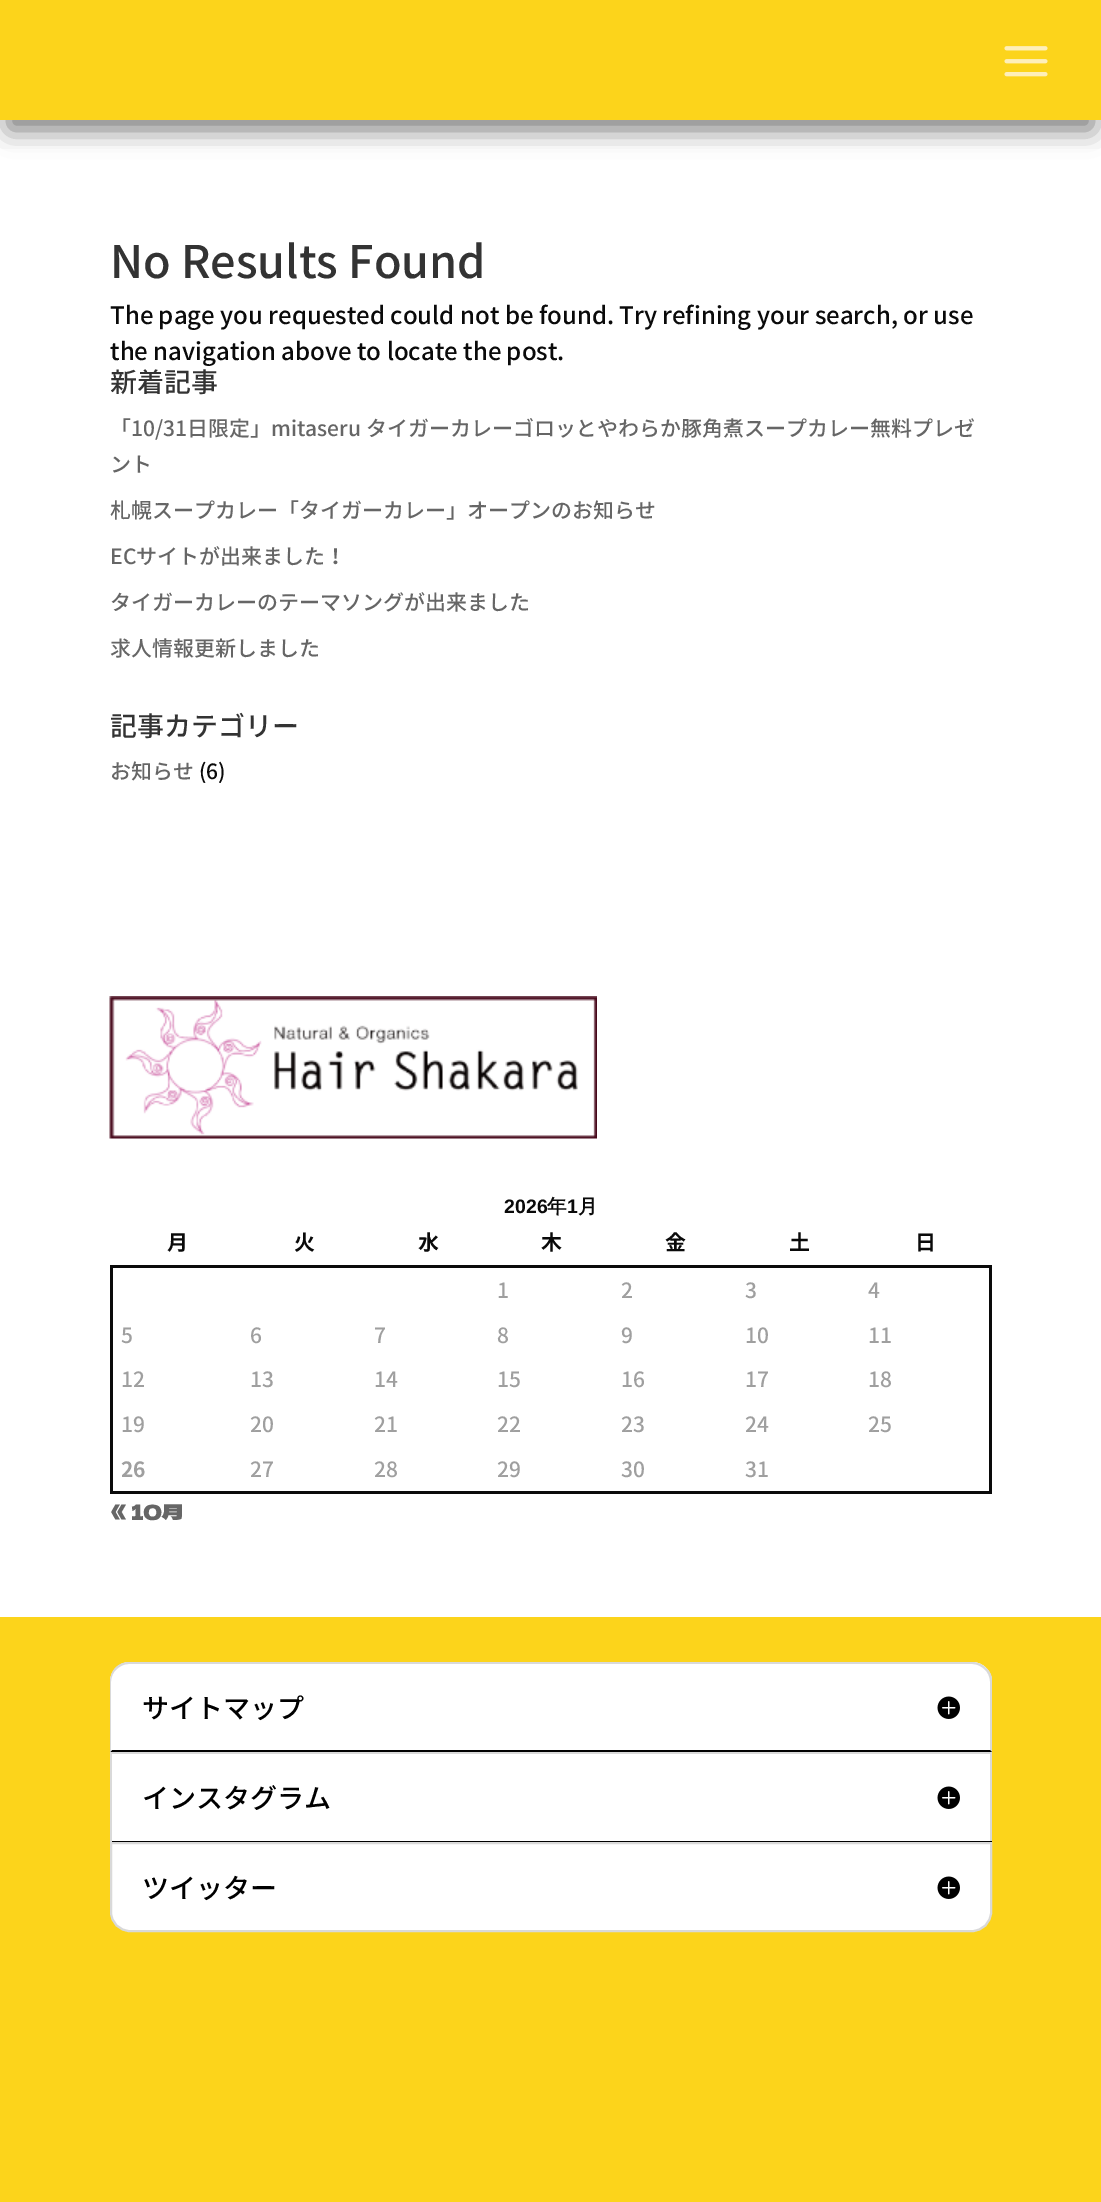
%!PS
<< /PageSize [1101 2202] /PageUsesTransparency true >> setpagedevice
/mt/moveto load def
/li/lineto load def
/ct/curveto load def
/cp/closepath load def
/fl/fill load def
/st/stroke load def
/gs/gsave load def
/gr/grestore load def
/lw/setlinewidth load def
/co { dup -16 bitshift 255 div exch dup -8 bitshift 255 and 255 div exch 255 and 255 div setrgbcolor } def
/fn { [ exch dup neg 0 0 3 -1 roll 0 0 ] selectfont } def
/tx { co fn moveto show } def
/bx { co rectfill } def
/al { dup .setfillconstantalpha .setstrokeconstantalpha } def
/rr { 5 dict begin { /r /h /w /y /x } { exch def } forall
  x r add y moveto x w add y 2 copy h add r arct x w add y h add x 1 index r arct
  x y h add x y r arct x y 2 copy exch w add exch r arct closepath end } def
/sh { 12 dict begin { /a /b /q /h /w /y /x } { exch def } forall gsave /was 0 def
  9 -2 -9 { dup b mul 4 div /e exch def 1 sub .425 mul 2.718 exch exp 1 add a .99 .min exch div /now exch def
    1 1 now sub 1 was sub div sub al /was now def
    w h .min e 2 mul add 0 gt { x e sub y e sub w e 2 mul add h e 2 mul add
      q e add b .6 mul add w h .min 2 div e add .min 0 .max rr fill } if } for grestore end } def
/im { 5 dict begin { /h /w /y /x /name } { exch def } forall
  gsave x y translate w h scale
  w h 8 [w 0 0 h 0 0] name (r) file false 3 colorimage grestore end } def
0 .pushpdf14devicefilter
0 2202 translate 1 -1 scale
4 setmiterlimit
0 0 1101 2202 16#FFFFFF bx
16#000000 co
9 27 1083 102 0 13.5 .3 sh
0 0 1101 120 16#FCD41B bx
gs
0 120 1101 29 rectclip
16#000000 co
9 27 1083 102 0 13.5 .3 sh
gr
(media/1.raw) 1004 46 44 31 im
(media/2.raw) 109 996 488 143 im
110 1265 882 3 16#0A0A0A bx
989 1265 3 229 16#0A0A0A bx
110 1491 882 3 16#0A0A0A bx
110 1265 3 229 16#0A0A0A bx
0 1617 1101 585 16#FCD41B bx
16#FFFFFF co
130 1662 mt 972 1662 li 983 1662 992 1671 992 1682 ct 992 1752 li 110 1752 li 110 1682 li 110 1671 119 1662 130 1662 ct cp fl
16#D9D9D9 co
129 1662 mt 124 1662 119 1664 115 1668 ct 117 1669 li 120 1666 124 1664 129 1664 ct 972 1664 li 977 1664 981 1666 984 1669 ct 986 1668 li 982 1664 977 1662 972 1662 ct cp fl
992 1678 mt 992 1752 li 990 1750 li 990 1682 li 990 1677 988 1672 984 1669 ct 986 1668 li 989 1670 991 1674 992 1678 ct cp fl
16#000000 co
992 1752 mt 990 1750 li 112 1750 li 110 1752 li cp fl
16#D9D9D9 co
115 1668 mt 112 1672 110 1676 110 1682 ct 110 1752 li 112 1750 li 111 1750 li 111 1682 li 111 1677 113 1672 117 1669 ct cp fl
(media/3.raw) 937 1696 23 23 im
112 1754 878 87 16#FFFFFF bx
110 1752 882 2 16#D9D9D9 bx
990 1752 2 90 16#D9D9D9 bx
110 1841 882 1 16#000000 bx
110 1752 2 90 16#D9D9D9 bx
(media/3.raw) 937 1786 23 23 im
16#FFFFFF co
111 1843 mt 991 1843 li 991 1912 li 991 1922.5 982.5 1931 972 1931 ct 130 1931 li 119.5 1931 111 1922.5 111 1912 ct cp gs fl gr
16#D9D9D9 co
2 lw
st
(media/3.raw) 937 1876 23 23 im
(No Results Found) 110 278 /NotoSansJP-Medium 45 16#333333 tx
(The page you requested could not be found. Try refining your search, or use) 110 324 /NotoSansJP-Medium 24 16#0A0A0A tx
(the navigation above to locate the post.) 110 360 /NotoSansJP-Medium 24 16#0A0A0A tx
(新着記事) 110 392 /NotoSansJP-Medium 27 16#333333 tx
(「10/31日限定」mitaseru タイガーカレーゴロッとやわらか豚角煮スープカレー無料プレゼ) 110 436 /NotoSansJP-Medium 21 16#666666 tx
(ント) 110 472 /NotoSansJP-Medium 21 16#666666 tx
(札幌スープカレー「タイガーカレー」オープンのお知らせ) 110 518 /NotoSansJP-Medium 21 16#666666 tx
(ECサイトが出来ました！) 110 564 /NotoSansJP-Medium 21 16#666666 tx
(タイガーカレーのテーマソングが出来ました) 110 610 /NotoSansJP-Medium 21 16#666666 tx
(求人情報更新しました) 110 656 /NotoSansJP-Medium 21 16#666666 tx
(記事カテゴリー) 110 736 /NotoSansJP-Medium 27 16#333333 tx
(お知らせ) 110 779 /NotoSansJP-Medium 21 16#666666 tx
(\(6\)) 199 779 /NotoSansJP-Medium 21 16#0A0A0A tx
(2026) 504 1213 /LiberationSans-Bold 19.5 16#0A0A0A tx
(年) 547 1213 /WenQuanYiZenHei-Bold 19.5 16#0A0A0A tx
(1) 567 1213 /LiberationSans-Bold 19.5 16#0A0A0A tx
(月) 578 1213 /WenQuanYiZenHei-Bold 19.5 16#0A0A0A tx
(月) 167 1250 /NotoSansJP-Bold 21 16#0A0A0A tx
(火) 294 1250 /NotoSansJP-Bold 21 16#0A0A0A tx
(水) 418 1250 /NotoSansJP-Bold 21 16#0A0A0A tx
(木) 541 1250 /NotoSansJP-Bold 21 16#0A0A0A tx
(金) 665 1250 /NotoSansJP-Bold 21 16#0A0A0A tx
(土) 789 1250 /NotoSansJP-Bold 21 16#0A0A0A tx
(日) 915 1250 /NotoSansJP-Bold 21 16#0A0A0A tx
(1) 497 1298 /NotoSansJP-Medium 21 16#9F9F9F tx
(2) 621 1298 /NotoSansJP-Medium 21 16#9F9F9F tx
(3) 745 1298 /NotoSansJP-Medium 21 16#9F9F9F tx
(4) 868 1298 /NotoSansJP-Medium 21 16#9F9F9F tx
(5) 121 1343 /NotoSansJP-Medium 21 16#9F9F9F tx
(6) 250 1343 /NotoSansJP-Medium 21 16#9F9F9F tx
(7) 374 1343 /NotoSansJP-Medium 21 16#9F9F9F tx
(8) 497 1343 /NotoSansJP-Medium 21 16#9F9F9F tx
(9) 621 1343 /NotoSansJP-Medium 21 16#9F9F9F tx
(10) 745 1343 /NotoSansJP-Medium 21 16#9F9F9F tx
(11) 868 1343 /NotoSansJP-Medium 21 16#9F9F9F tx
(12) 121 1387 /NotoSansJP-Medium 21 16#9F9F9F tx
(13) 250 1387 /NotoSansJP-Medium 21 16#9F9F9F tx
(14) 374 1387 /NotoSansJP-Medium 21 16#9F9F9F tx
(15) 497 1387 /NotoSansJP-Medium 21 16#9F9F9F tx
(16) 621 1387 /NotoSansJP-Medium 21 16#9F9F9F tx
(17) 745 1387 /NotoSansJP-Medium 21 16#9F9F9F tx
(18) 868 1387 /NotoSansJP-Medium 21 16#9F9F9F tx
(19) 121 1432 /NotoSansJP-Medium 21 16#9F9F9F tx
(20) 250 1432 /NotoSansJP-Medium 21 16#9F9F9F tx
(21) 374 1432 /NotoSansJP-Medium 21 16#9F9F9F tx
(22) 497 1432 /NotoSansJP-Medium 21 16#9F9F9F tx
(23) 621 1432 /NotoSansJP-Medium 21 16#9F9F9F tx
(24) 745 1432 /NotoSansJP-Medium 21 16#9F9F9F tx
(25) 868 1432 /NotoSansJP-Medium 21 16#9F9F9F tx
(26) 121 1477 /NotoSansJP-Bold 21 16#9F9F9F tx
(27) 250 1477 /NotoSansJP-Medium 21 16#9F9F9F tx
(28) 374 1477 /NotoSansJP-Medium 21 16#9F9F9F tx
(29) 497 1477 /NotoSansJP-Medium 21 16#9F9F9F tx
(30) 621 1477 /NotoSansJP-Medium 21 16#9F9F9F tx
(31) 745 1477 /NotoSansJP-Medium 21 16#9F9F9F tx
(« 10月) 110 1520 /DelaGothicOne-Regular 21 16#666666 tx
(サイトマップ) 142 1718 /NotoSansJP-Medium 27 16#000000 tx
(インスタグラム) 142 1808 /NotoSansJP-Medium 27 16#000000 tx
(ツイッター) 142 1898 /NotoSansJP-Medium 27 16#000000 tx
.poppdf14devicefilter showpage
